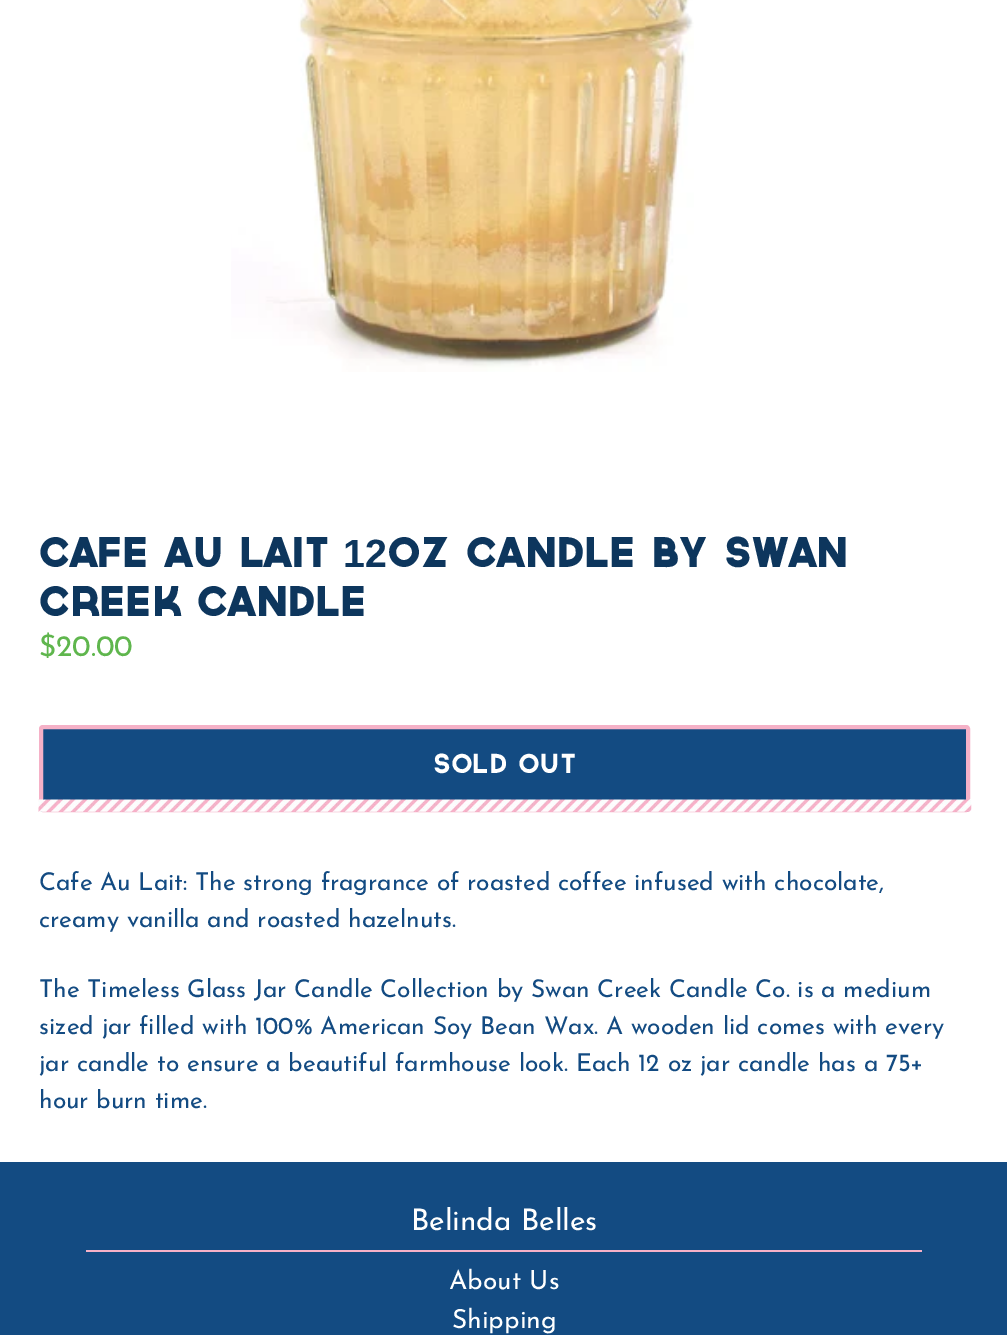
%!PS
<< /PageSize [1007 1335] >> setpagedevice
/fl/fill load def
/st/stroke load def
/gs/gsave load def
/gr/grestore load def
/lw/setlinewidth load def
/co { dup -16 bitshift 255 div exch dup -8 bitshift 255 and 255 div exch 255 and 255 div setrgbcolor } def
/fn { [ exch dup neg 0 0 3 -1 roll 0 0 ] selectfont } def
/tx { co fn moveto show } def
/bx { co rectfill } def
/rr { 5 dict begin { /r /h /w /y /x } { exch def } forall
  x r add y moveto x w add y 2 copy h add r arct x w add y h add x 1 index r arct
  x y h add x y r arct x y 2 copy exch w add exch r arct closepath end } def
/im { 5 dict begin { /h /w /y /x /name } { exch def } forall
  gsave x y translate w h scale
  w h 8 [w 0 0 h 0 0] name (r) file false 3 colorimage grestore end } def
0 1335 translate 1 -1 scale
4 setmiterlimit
0 0 1007 1335 16#FFFFFF bx
(media/1.raw) 231 0 463 372 im
16#134B82 co
41 727 927 83 2 rr gs fl gr
16#F5B1C7 co
4 lw
st
(media/2.raw) 38 799 934 13 im
0 1162 1007 173 16#134B82 bx
86 1250 836 2 16#F5B1C7 bx
(CAFE AU LAIT) 39 567 /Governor-Bold 39.4 16#0D365D tx
(12) 343 567 /LiberationSans-Bold 39.4 16#0D365D tx
(OZ CANDLE BY SWAN) 387 567 /Governor-Bold 39.4 16#0D365D tx
(CREEK CANDLE) 39 616 /Governor-Bold 39.4 16#0D365D tx
($20.00) 39 656 /JosefinSans-Regular 29.75 16#5FB64D tx
(SOLD OUT) 433 773 /Governor-Regular 26.25 16#FFFFFF tx
(Cafe Au Lait: The strong fragrance of roasted coffee infused with chocolate,) 39 890 /JosefinSans-Regular 24.5 16#134B82 tx
(creamy vanilla and roasted hazelnuts.) 39 927 /JosefinSans-Regular 24.5 16#134B82 tx
(The Timeless Glass Jar Candle Collection by Swan Creek Candle Co. is a medium) 39 997 /JosefinSans-Regular 24.5 16#134B82 tx
(sized jar filled with 100% American Soy Bean Wax. A wooden lid comes with every) 39 1034 /JosefinSans-Regular 24.5 16#134B82 tx
(jar candle to ensure a beautiful farmhouse look. Each 12 oz jar candle has a 75+) 39 1071 /JosefinSans-Regular 24.5 16#134B82 tx
(hour burn time.) 39 1108 /JosefinSans-Regular 24.5 16#134B82 tx
(Belinda Belles) 411 1230 /JosefinSans-Regular 29.75 16#FFFFFF tx
(About Us) 449 1289 /JosefinSans-Regular 26.25 16#FFFFFF tx
(Shipping) 452 1328 /JosefinSans-Regular 26.25 16#FFFFFF tx
showpage
